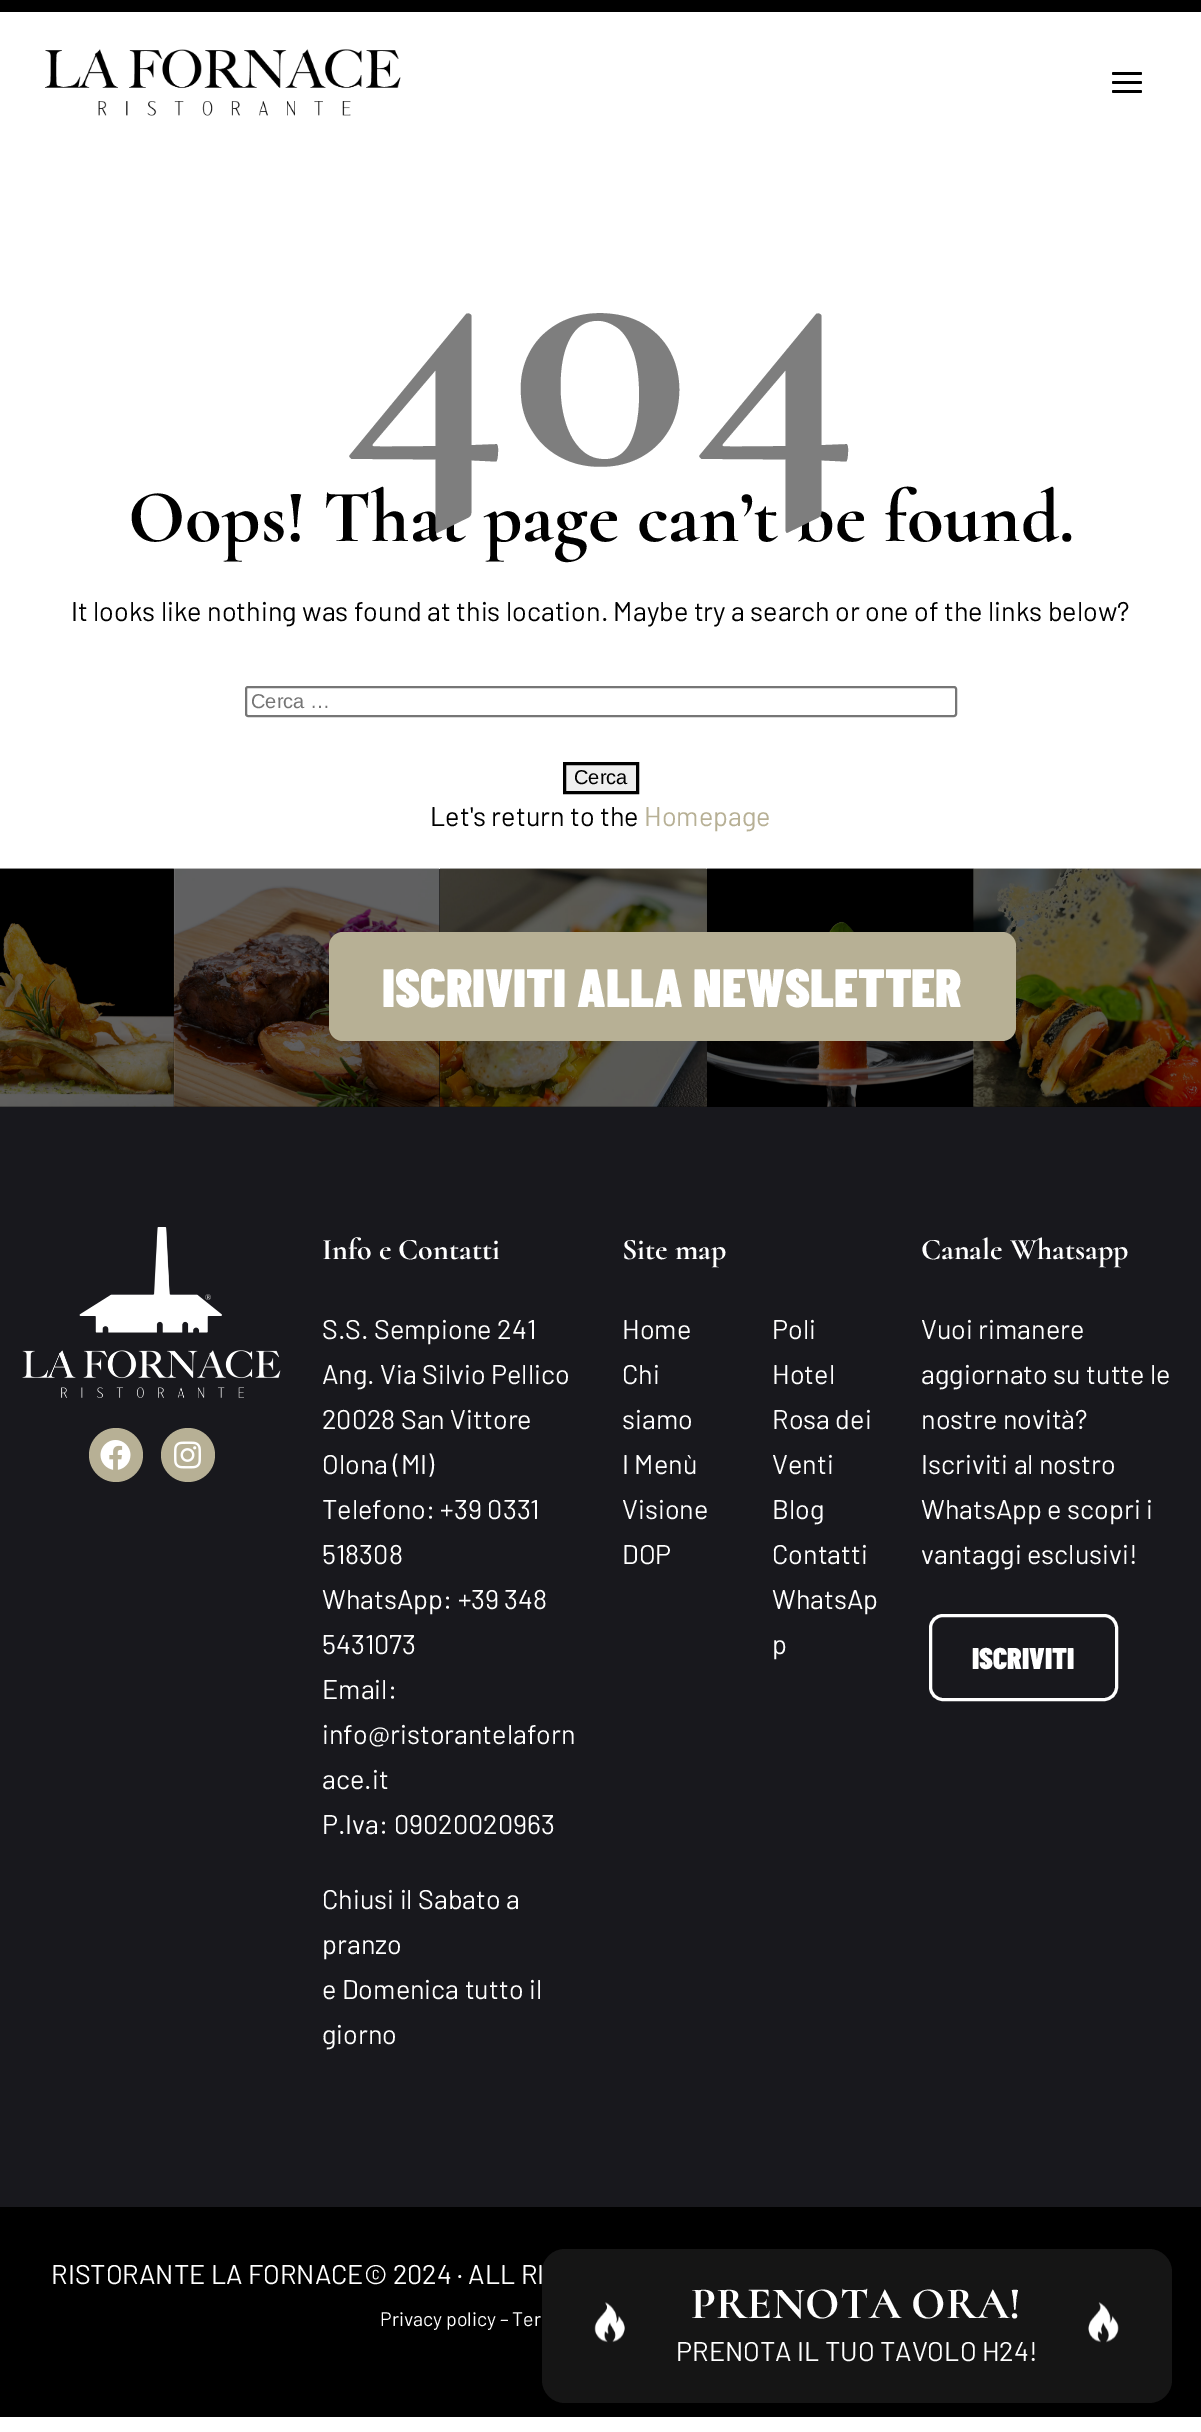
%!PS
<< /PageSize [1201 2432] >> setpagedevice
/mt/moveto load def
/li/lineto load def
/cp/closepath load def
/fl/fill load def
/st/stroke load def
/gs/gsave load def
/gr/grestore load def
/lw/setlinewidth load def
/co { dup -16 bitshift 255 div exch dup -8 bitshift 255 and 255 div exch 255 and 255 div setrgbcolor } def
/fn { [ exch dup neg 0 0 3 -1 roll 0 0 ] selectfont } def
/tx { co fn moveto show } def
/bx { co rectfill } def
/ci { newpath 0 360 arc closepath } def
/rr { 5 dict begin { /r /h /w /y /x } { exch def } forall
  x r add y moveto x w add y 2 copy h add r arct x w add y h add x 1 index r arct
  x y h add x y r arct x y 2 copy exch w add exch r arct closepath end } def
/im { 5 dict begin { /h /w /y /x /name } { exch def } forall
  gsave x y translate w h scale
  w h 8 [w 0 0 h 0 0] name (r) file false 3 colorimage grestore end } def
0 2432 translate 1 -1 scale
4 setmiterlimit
0 0 1201 2432 16#FFFFFF bx
0 0 1201 12 16#000000 bx
(media/1.raw) 45 49 356 67 im
1112 72 30 3 1.5 rr fl
1112 81 30 3 1.5 rr fl
1112 90 30 3 1.5 rr fl
16#767676 co
2 lw
246 687 710 29 2 rr st
16#EFEFEF co
564.5 763.5 mt 637.5 763.5 li 637.5 792.5 li 564.5 792.5 li cp gs fl gr
16#000000 co
3 lw
st
0 869 1201 1548 16#000000 bx
16#151515 co
542 2249 630 154 23 rr fl
(media/2.raw) 594 2302 31 41 im
(media/3.raw) 1088 2302 31 41 im
(media/4.raw) 0 868 174 239 im
(media/5.raw) 173 868 267 239 im
(media/6.raw) 440 868 267 239 im
(media/7.raw) 707 868 267 239 im
(media/8.raw) 973 868 228 239 im
16#B7B095 co
329 932 687 109 14 rr fl
0 1107 1201 1100 16#18181D bx
(media/9.raw) 22 1227 259 171 im
16#B7B095 co
116 1455 27 ci fl
(media/10.raw) 100 1440 31 30 im
188 1455 27 ci fl
(media/11.raw) 174 1441 27 28 im
16#FFFFFF co
930.5 1615.5 186 84 12.5 rr st
(Oops! That page can’t be found.) 128 541 /Cormorant-Bold 75 16#000000 tx
(404) 340 462 /Cormorant-Bold 375 16#7E7E7E tx
(It looks like nothing was found at this location. Maybe try a search or one of the links below?) 71 621 /Barlow-Regular 27 16#000000 tx
(Cerca …) 251 708 /LiberationSans-Regular 20 16#757575 tx
(Cerca) 574 784 /LiberationSans-Regular 20 16#000000 tx
(Let's return to the) 430 826 /Barlow-Regular 27 16#000000 tx
(Homepage) 644 826 /Barlow-Regular 27 16#B7B095 tx
(PRENOTA ORA!) 691 2318 /Cormorant-Bold 45 16#FFFFFF tx
(PRENOTA IL TUO TAVOLO H24!) 676 2361 /Barlow-Regular 27 16#FFFFFF tx
(ISCRIVITI ALLA NEWSLETTER) 382 1007 /BarlowCondensed-Black 54 16#FFFFFF tx
(Info e Contatti) 322 1259 /Cormorant-Bold 30 16#FFFFFF tx
(S.S. Sempione 241) 322 1339 /Barlow-Regular 27 16#FFFFFF tx
(Ang. Via Silvio Pellico) 322 1384 /Barlow-Regular 27 16#FFFFFF tx
(20028 San Vittore) 322 1429 /Barlow-Regular 27 16#FFFFFF tx
(Olona \(MI\)) 322 1474 /Barlow-Regular 27 16#FFFFFF tx
(Telefono: +39 0331) 322 1519 /Barlow-Regular 27 16#FFFFFF tx
(518308) 322 1564 /Barlow-Regular 27 16#FFFFFF tx
(WhatsApp: +39 348) 322 1609 /Barlow-Regular 27 16#FFFFFF tx
(5431073) 322 1654 /Barlow-Regular 27 16#FFFFFF tx
(Email:) 322 1699 /Barlow-Regular 27 16#FFFFFF tx
(info@ristorantelaforn) 322 1744 /Barlow-Regular 27 16#FFFFFF tx
(ace.it) 322 1789 /Barlow-Regular 27 16#FFFFFF tx
(P.Iva: 09020020963) 322 1834 /Barlow-Regular 27 16#FFFFFF tx
(Chiusi il Sabato a) 322 1909 /Barlow-Regular 27 16#FFFFFF tx
(pranzo) 322 1954 /Barlow-Regular 27 16#FFFFFF tx
(e Domenica tutto il) 322 1999 /Barlow-Regular 27 16#FFFFFF tx
(giorno) 322 2044 /Barlow-Regular 27 16#FFFFFF tx
(Site map) 622 1259 /Cormorant-Bold 30 16#FFFFFF tx
(Home) 622 1339 /Barlow-Regular 27 16#FFFFFF tx
(Chi) 622 1384 /Barlow-Regular 27 16#FFFFFF tx
(siamo) 622 1429 /Barlow-Regular 27 16#FFFFFF tx
(I Menù) 622 1474 /Barlow-Regular 27 16#FFFFFF tx
(Visione) 622 1519 /Barlow-Regular 27 16#FFFFFF tx
(DOP) 622 1564 /Barlow-Regular 27 16#FFFFFF tx
(Poli) 772 1339 /Barlow-Regular 27 16#FFFFFF tx
(Hotel) 772 1384 /Barlow-Regular 27 16#FFFFFF tx
(Rosa dei) 772 1429 /Barlow-Regular 27 16#FFFFFF tx
(Venti) 772 1474 /Barlow-Regular 27 16#FFFFFF tx
(Blog) 772 1519 /Barlow-Regular 27 16#FFFFFF tx
(Contatti) 772 1564 /Barlow-Regular 27 16#FFFFFF tx
(WhatsAp) 772 1609 /Barlow-Regular 27 16#FFFFFF tx
(p) 772 1654 /Barlow-Regular 27 16#FFFFFF tx
(Canale Whatsapp) 921 1259 /Cormorant-Bold 30 16#FFFFFF tx
(Vuoi rimanere) 921 1339 /Barlow-Regular 27 16#FFFFFF tx
(aggiornato su tutte le) 921 1384 /Barlow-Regular 27 16#FFFFFF tx
(nostre novità?) 921 1429 /Barlow-Regular 27 16#FFFFFF tx
(Iscriviti al nostro) 921 1474 /Barlow-Regular 27 16#FFFFFF tx
(WhatsApp e scopri i) 921 1519 /Barlow-Regular 27 16#FFFFFF tx
(vantaggi esclusivi!) 921 1564 /Barlow-Regular 27 16#FFFFFF tx
(ISCRIVITI) 972 1669 /BarlowCondensed-Black 30 16#FFFFFF tx
(RISTORANTE LA FORNACE© 2024 · ALL RI) 51 2284 /Barlow-Regular 27 16#FFFFFF tx
(Privacy policy – Ter) 380 2326 /Barlow-Regular 19.5 16#FFFFFF tx
showpage
